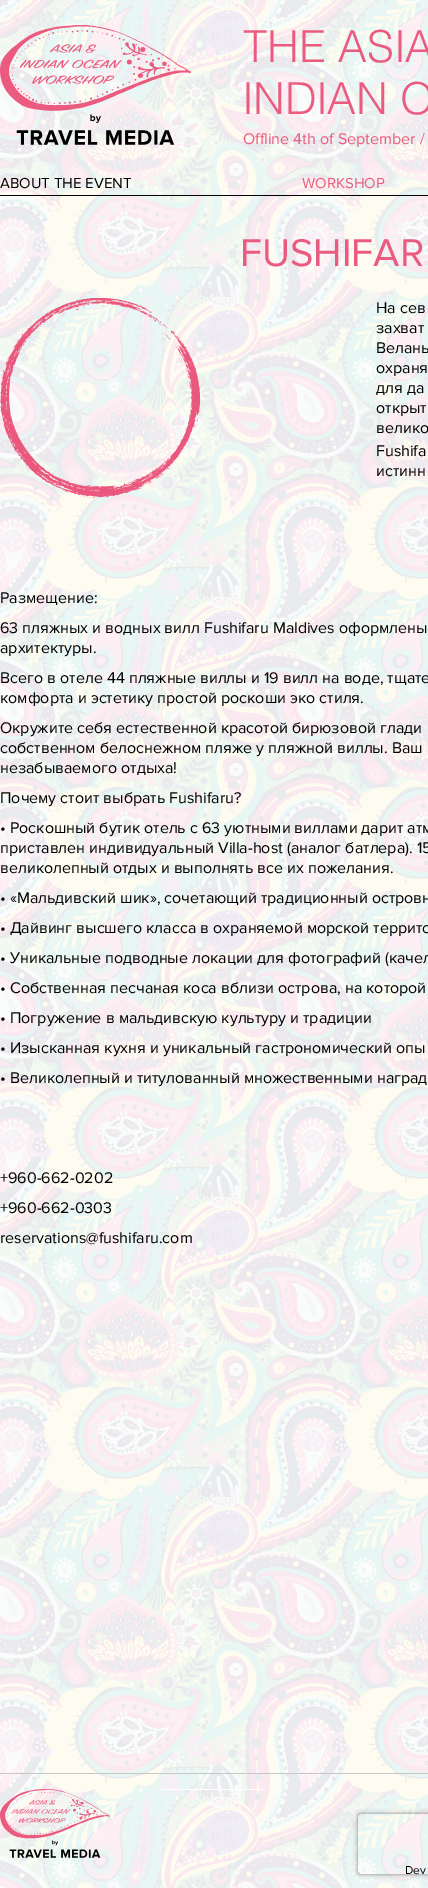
%!PS
<< /PageSize [428 1888] /PageUsesTransparency true >> setpagedevice
/mt/moveto load def
/li/lineto load def
/ct/curveto load def
/cp/closepath load def
/gs/gsave load def
/gr/grestore load def
/co { dup -16 bitshift 255 div exch dup -8 bitshift 255 and 255 div exch 255 and 255 div setrgbcolor } def
/fn { [ exch dup neg 0 0 3 -1 roll 0 0 ] selectfont } def
/tx { co fn moveto show } def
/bx { co rectfill } def
/al { dup .setfillconstantalpha .setstrokeconstantalpha } def
/rr { 5 dict begin { /r /h /w /y /x } { exch def } forall
  x r add y moveto x w add y 2 copy h add r arct x w add y h add x 1 index r arct
  x y h add x y r arct x y 2 copy exch w add exch r arct closepath end } def
/sh { 12 dict begin { /a /b /q /h /w /y /x } { exch def } forall gsave /was 0 def
  9 -2 -9 { dup b mul 4 div /e exch def 1 sub .425 mul 2.718 exch exp 1 add a .99 .min exch div /now exch def
    1 1 now sub 1 was sub div sub al /was now def
    w h .min e 2 mul add 0 gt { x e sub y e sub w e 2 mul add h e 2 mul add
      q e add b .6 mul add w h .min 2 div e add .min 0 .max rr fill } if } for grestore end } def
/im { 5 dict begin { /h /w /y /x /name } { exch def } forall
  gsave x y translate w h scale
  w h 8 [w 0 0 h 0 0] name (r) file false 3 colorimage grestore end } def
0 .pushpdf14devicefilter
0 1888 translate 1 -1 scale
4 setmiterlimit
0 0 428 1888 16#FFFFFF bx
(media/1.raw) 0 0 428 1888 im
(media/2.raw) 0 25 191 120 im
0 195 428 1 16#000000 bx
(media/3.raw) 0 298 200 200 im
0 1773 428 1 16#C7C7C7 bx
(media/4.raw) 0 1789 110 69 im
160 1789 103 1 16#FFFFFF bx
gs
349 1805 mt 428 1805 li 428 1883 li 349 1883 li cp 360 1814 mt 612 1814 li 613 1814 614 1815 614 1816 ct 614 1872 li 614 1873 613 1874 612 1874 ct 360 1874 li 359 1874 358 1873 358 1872 ct 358 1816 li 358 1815 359 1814 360 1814 ct cp eoclip newpath
16#808080 co
358 1814 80 60 2 2.5 1 sh
gr
(THE ASIA) 243 62 /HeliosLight-Light 44 16#EB5A7F tx
(INDIAN O) 243 114 /HeliosLight-Light 44 16#EB5A7F tx
(Offline 4th of September /) 243 144 /ProximaNova-Regular 16 16#EB5A7F tx
(ABOUT THE EVENT) 0 188 /ProximaNova-Regular 15 16#000000 tx
(WORKSHOP) 302 188 /ProximaNova-Regular 15 16#EB5A7F tx
(FUSHIFAR) 240 266 /ProximaNova-Regular 40 16#EB5A7F tx
(На сев) 376 313 /ProximaNova-Regular 16 16#000000 tx
(захват) 376 333 /ProximaNova-Regular 16 16#000000 tx
(Веланы) 376 353 /ProximaNova-Regular 16 16#000000 tx
(охраня) 376 373 /ProximaNova-Regular 16 16#000000 tx
(для да) 376 393 /ProximaNova-Regular 16 16#000000 tx
(открыт) 376 413 /ProximaNova-Regular 16 16#000000 tx
(велико) 376 433 /ProximaNova-Regular 16 16#000000 tx
(Fushifa) 376 456 /ProximaNova-Regular 16 16#000000 tx
(истинн) 376 476 /ProximaNova-Regular 16 16#000000 tx
(Размещение:) 0 603 /ProximaNova-Regular 16 16#000000 tx
(63 пляжных и водных вилл Fushifaru Maldives оформлены) 0 633 /ProximaNova-Regular 16 16#000000 tx
(архитектуры.) 0 653 /ProximaNova-Regular 16 16#000000 tx
(Всего в отеле 44 пляжные виллы и 19 вилл на воде, тщате) 0 683 /ProximaNova-Regular 16 16#000000 tx
(комфорта и эстетику простой роскоши эко стиля.) 0 703 /ProximaNova-Regular 16 16#000000 tx
(Окружите себя естественной красотой бирюзовой глади) 0 733 /ProximaNova-Regular 16 16#000000 tx
(собственном белоснежном пляже у пляжной виллы. Ваш) 0 753 /ProximaNova-Regular 16 16#000000 tx
(незабываемого отдыха!) 0 773 /ProximaNova-Regular 16 16#000000 tx
(Почему стоит выбрать Fushifaru?) 0 803 /ProximaNova-Regular 16 16#000000 tx
(• Роскошный бутик отель с 63 уютными виллами дарит атм) 0 833 /ProximaNova-Regular 16 16#000000 tx
(приставлен индивидуальный Villa-host \(аналог батлера\). 15) 0 853 /ProximaNova-Regular 16 16#000000 tx
(великолепный отдых и выполнять все их пожелания.) 0 873 /ProximaNova-Regular 16 16#000000 tx
(• «Мальдивский шик», сочетающий традиционный островн) 0 903 /ProximaNova-Regular 16 16#000000 tx
(• Дайвинг высшего класса в охраняемой морской террито) 0 933 /ProximaNova-Regular 16 16#000000 tx
(• Уникальные подводные локации для фотографий \(качел) 0 963 /ProximaNova-Regular 16 16#000000 tx
(• Собственная песчаная коса вблизи острова, на которой) 0 993 /ProximaNova-Regular 16 16#000000 tx
(• Погружение в мальдивскую культуру и традиции) 0 1023 /ProximaNova-Regular 16 16#000000 tx
(• Изысканная кухня и уникальный гастрономический опы) 0 1053 /ProximaNova-Regular 16 16#000000 tx
(• Великолепный и титулованный множественными наград) 0 1083 /ProximaNova-Regular 16 16#000000 tx
(+960-662-0202) 0 1183 /ProximaNova-Regular 16 16#000000 tx
(+960-662-0303) 0 1213 /ProximaNova-Regular 16 16#000000 tx
(reservations@fushifaru.com) 0 1243 /ProximaNova-Regular 16 16#000000 tx
(Dev) 405 1874 /ProximaNova-Regular 12 16#000000 tx
.poppdf14devicefilter showpage
